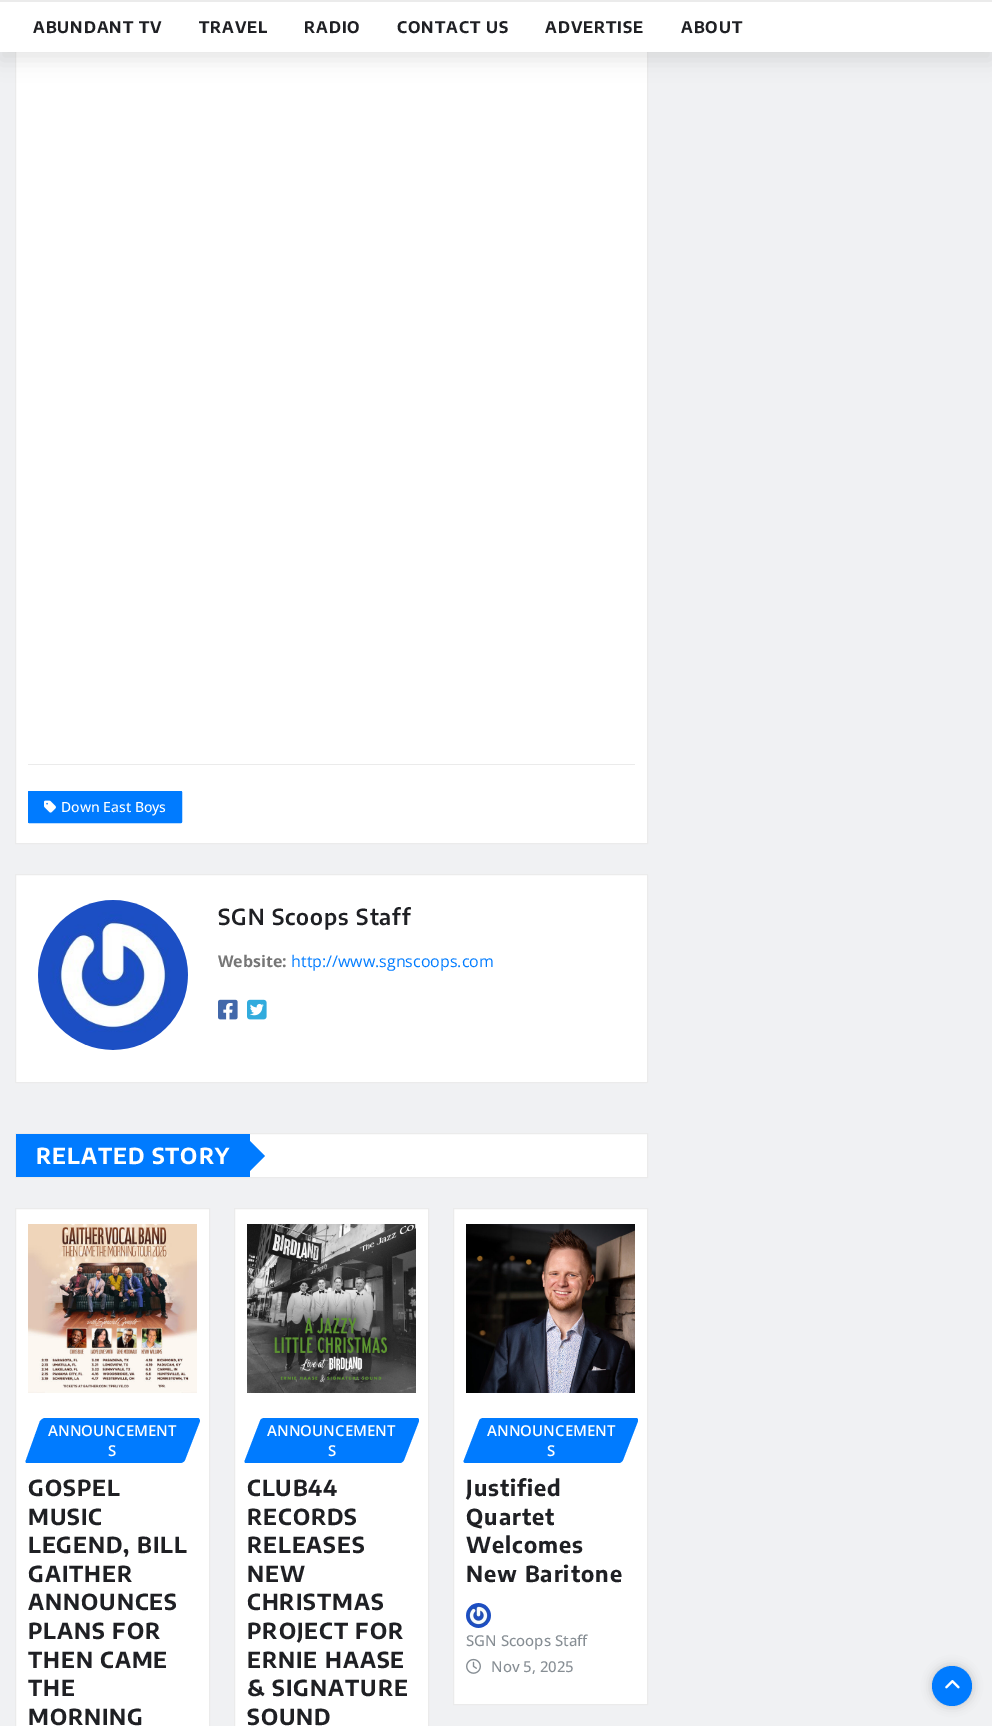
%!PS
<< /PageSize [992 1726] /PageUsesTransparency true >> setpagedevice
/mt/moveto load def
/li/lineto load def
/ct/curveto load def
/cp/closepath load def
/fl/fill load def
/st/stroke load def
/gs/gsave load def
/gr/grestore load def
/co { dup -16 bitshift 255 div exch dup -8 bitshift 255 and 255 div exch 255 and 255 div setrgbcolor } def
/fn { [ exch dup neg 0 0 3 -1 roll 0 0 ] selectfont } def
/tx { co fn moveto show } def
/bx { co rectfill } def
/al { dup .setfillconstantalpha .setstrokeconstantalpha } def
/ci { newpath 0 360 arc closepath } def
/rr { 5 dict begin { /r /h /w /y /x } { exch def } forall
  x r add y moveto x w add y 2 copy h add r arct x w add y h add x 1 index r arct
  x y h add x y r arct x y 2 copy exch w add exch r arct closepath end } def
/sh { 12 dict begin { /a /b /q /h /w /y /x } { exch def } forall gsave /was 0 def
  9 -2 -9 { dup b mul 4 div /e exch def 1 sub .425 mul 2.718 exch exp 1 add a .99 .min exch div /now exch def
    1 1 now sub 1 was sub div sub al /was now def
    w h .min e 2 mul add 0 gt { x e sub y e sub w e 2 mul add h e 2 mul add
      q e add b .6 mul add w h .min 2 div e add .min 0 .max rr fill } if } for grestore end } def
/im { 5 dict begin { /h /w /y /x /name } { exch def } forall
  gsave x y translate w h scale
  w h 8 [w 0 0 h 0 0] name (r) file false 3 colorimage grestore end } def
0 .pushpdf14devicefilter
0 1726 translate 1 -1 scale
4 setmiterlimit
0 0 992 1726 16#F0F1F3 bx
16 52 631 791 16#FFFFFF bx
16#EBEBEB co
15.5 -.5 632 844 rectstroke
16#000000 co
0 8 992 52 0 10 .1 sh
0 2 992 50 16#FFFFFF bx
0 0 992 2 16#EBEBEB bx
28 764 607 1 16#EBEBEB bx
16#007BFF co
28.5 791.5 153 31 .5 rr gs fl gr
st
(media/1.raw) 44 800 12 13 im
16#FFFFFF co
15.5 874.5 632 208 .5 rr gs fl gr
16#EBEBEB co
st
(media/2.raw) 38 900 150 150 im
(media/3.raw) 218 999 20 21 im
(media/4.raw) 247 999 20 21 im
250 1134 397 43 16#FFFFFF bx
16#EBEBEB co
15.5 1133.5 632 44 rectstroke
16 1134 234 43 16#007BFF bx
250 1171 mt 250 1141 li 265 1156 li cp fl
16#FFFFFF co
15.5 1208.5 mt 209.5 1208.5 li 209.5 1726.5 li 15.5 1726.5 li cp gs fl gr
16#EBEBEB co
st
(media/5.raw) 28 1224 169 169 im
16#007BFF co
45 1418 mt 198 1418 li 199 1418 200 1420 200 1421 ct 185 1460 li 184 1462 182 1463 180 1463 ct 27 1463 li 26 1463 25 1462 26 1460 ct 40 1421 li 41 1420 43 1418 45 1418 ct cp fl
16#FFFFFF co
234.5 1208.5 mt 428.5 1208.5 li 428.5 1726.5 li 234.5 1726.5 li cp gs fl gr
16#EBEBEB co
st
(media/6.raw) 247 1224 169 169 im
16#007BFF co
264 1418 mt 417 1418 li 419 1418 419 1420 419 1421 ct 404 1460 li 403 1462 401 1463 400 1463 ct 246 1463 li 245 1463 244 1462 245 1460 ct 260 1421 li 260 1420 262 1418 264 1418 ct cp fl
16#FFFFFF co
453.5 1208.5 mt 647.5 1208.5 li 647.5 1704.5 li 453.5 1704.5 li cp gs fl gr
16#EBEBEB co
st
(media/7.raw) 466 1224 169 169 im
16#007BFF co
483 1418 mt 636 1418 li 638 1418 638 1420 638 1421 ct 623 1460 li 622 1462 620 1463 619 1463 ct 466 1463 li 464 1463 463 1462 464 1460 ct 479 1421 li 479 1420 481 1418 483 1418 ct cp fl
(media/8.raw) 466 1603 25 25 im
(media/9.raw) 466 1658 15 16 im
16#000000 co
932 1666 40 40 20 5 .2 sh
16#007BFF co
952 1686 20 ci fl
(media/10.raw) 945 1680 15 9 im
/EncodeSansCondensed-Bold 16 fn
16#1F2024 co
33 33 mt 1 0 (ABUNDANT TV) ashow
199 33 mt 1 0 (TRAVEL) ashow
304 33 mt 1 0 (RADIO) ashow
397 33 mt 1 0 (CONTACT US) ashow
545 33 mt 1 0 (ADVERTISE) ashow
681 33 mt 1 0 (ABOUT) ashow
(Down East Boys) 61 812 /OpenSans-Medium 14 16#FFFFFF tx
/EncodeSansCondensed-SemiBold 22 fn
16#1F2024 co
218 925 mt 1 0 (SGN Scoops Staff) ashow
(Website:) 218 967 /OpenSans-Bold 16 16#767676 tx
(http://www.sgnscoops.com) 291 967 /OpenSans-Regular 16 16#007BFF tx
/EncodeSansCondensed-Bold 22 fn
16#FFFFFF co
36 1164 mt 1 0 (RELATED STORY) ashow
(ANNOUNCEMENT) 48 1436 /OpenSans-SemiBold 15 16#FFFFFF tx
(S) 108 1456 /OpenSans-SemiBold 15 16#FFFFFF tx
/EncodeSansCondensed-Bold 22 fn
16#1F2024 co
28 1496 mt 1 0 (GOSPEL) ashow
28 1525 mt 1 0 (MUSIC) ashow
28 1553 mt 1 0 (LEGEND, BILL) ashow
28 1582 mt 1 0 (GAITHER) ashow
28 1610 mt 1 0 (ANNOUNCES) ashow
28 1639 mt 1 0 (PLANS FOR) ashow
28 1668 mt 1 0 (THEN CAME) ashow
28 1696 mt 1 0 (THE) ashow
28 1725 mt 1 0 (MORNING) ashow
(ANNOUNCEMENT) 267 1436 /OpenSans-SemiBold 15 16#FFFFFF tx
(S) 328 1456 /OpenSans-SemiBold 15 16#FFFFFF tx
/EncodeSansCondensed-Bold 22 fn
16#1F2024 co
247 1496 mt 1 0 (CLUB44) ashow
247 1525 mt 1 0 (RECORDS) ashow
247 1553 mt 1 0 (RELEASES) ashow
247 1582 mt 1 0 (NEW) ashow
247 1610 mt 1 0 (CHRISTMAS) ashow
247 1639 mt 1 0 (PROJECT FOR) ashow
247 1668 mt 1 0 (ERNIE HAASE) ashow
247 1696 mt 1 0 (& SIGNATURE) ashow
247 1725 mt 1 0 (SOUND) ashow
(ANNOUNCEMENT) 487 1436 /OpenSans-SemiBold 15 16#FFFFFF tx
(S) 547 1456 /OpenSans-SemiBold 15 16#FFFFFF tx
/EncodeSansCondensed-Bold 22 fn
16#1F2024 co
466 1496 mt 1 0 (Justified) ashow
466 1525 mt 1 0 (Quartet) ashow
466 1553 mt 1 0 (Welcomes) ashow
466 1582 mt 1 0 (New Baritone) ashow
(SGN Scoops Staff) 466 1646 /OpenSans-Medium 15 16#878E94 tx
(Nov 5, 2025) 491 1672 /OpenSans-Medium 15 16#878E94 tx
.poppdf14devicefilter showpage
